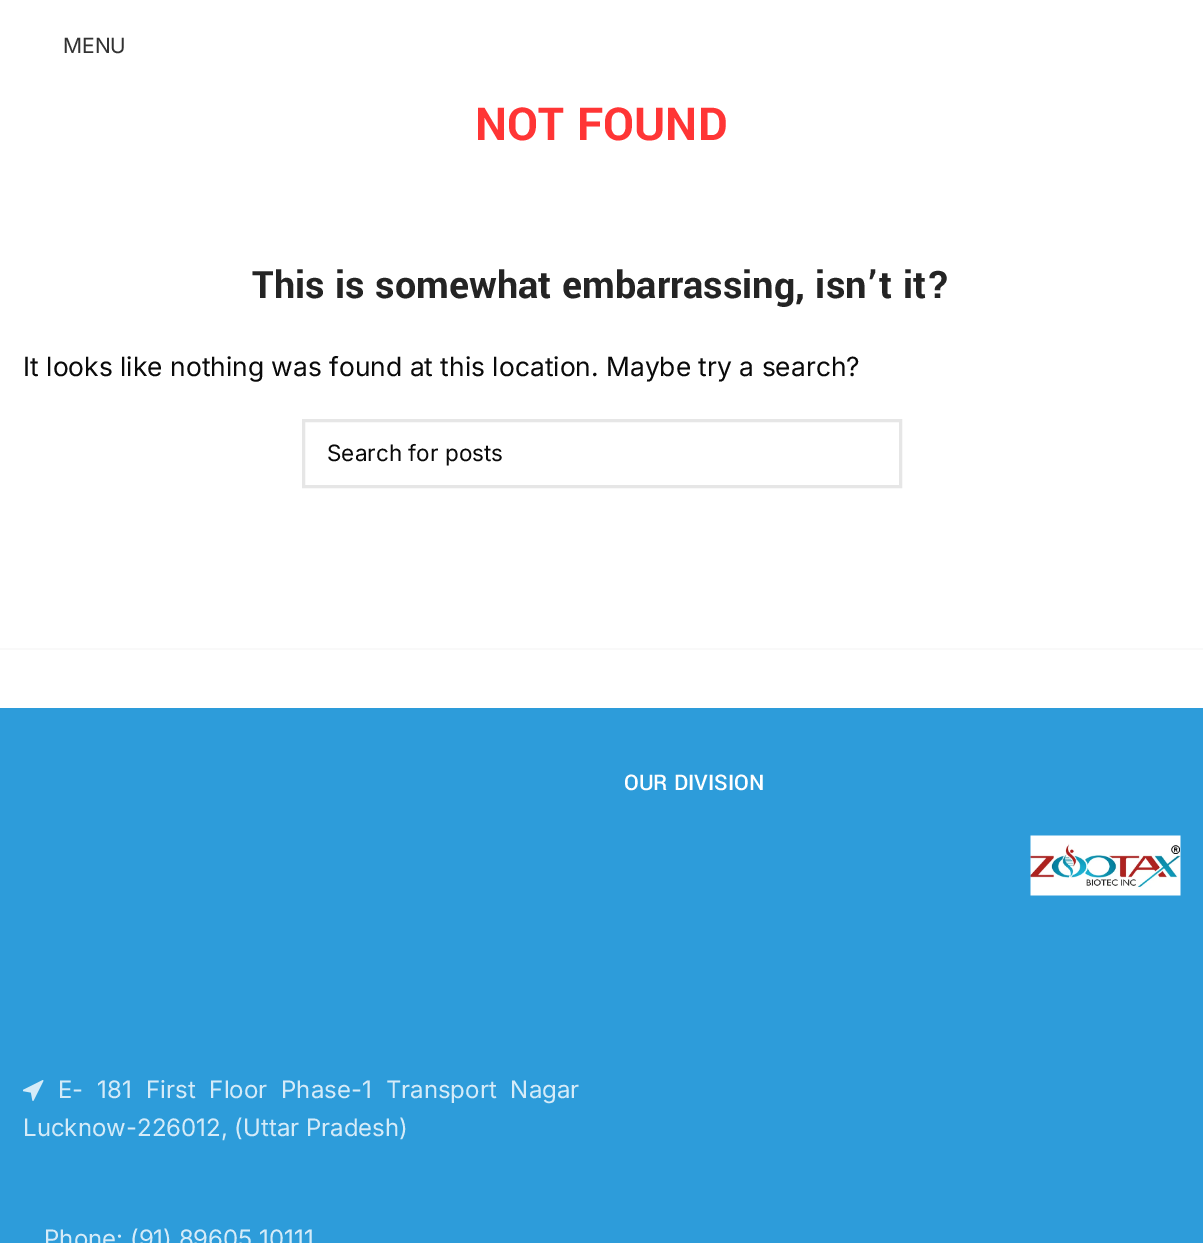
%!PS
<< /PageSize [1203 1243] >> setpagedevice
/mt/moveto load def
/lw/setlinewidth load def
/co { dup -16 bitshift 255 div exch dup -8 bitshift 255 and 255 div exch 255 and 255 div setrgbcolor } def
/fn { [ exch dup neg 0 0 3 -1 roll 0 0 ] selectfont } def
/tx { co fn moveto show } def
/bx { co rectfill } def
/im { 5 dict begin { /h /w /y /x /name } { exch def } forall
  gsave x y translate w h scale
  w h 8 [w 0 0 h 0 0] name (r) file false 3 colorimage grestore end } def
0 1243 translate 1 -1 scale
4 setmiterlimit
0 0 1203 1243 16#FFFFFF bx
16#E6E6E6 co
3 lw
303.5 420.5 597 66 rectstroke
0 648 1203 2 16#F9F9F9 bx
0 708 1203 535 16#2D9CDA bx
(media/1.raw) 1030 835 151 61 im
(media/2.raw) 23 1080 21 21 im
(MENU) 63 53 /Inter-Regular 21 16#333333 tx
(NOT FOUND) 475 140 /Yantramanav-Bold 50.5 16#FF3535 tx
(This is somewhat embarrassing, isn’t it?) 252 298 /Yantramanav-Bold 42 16#242424 tx
(It looks like nothing was found at this location. Maybe try a search?) 23 376 /Inter-Regular 26.4 16#0A0A0A tx
(Search for posts) 327 461 /Inter-Regular 22.5 16#0A0A0A tx
(OUR DIVISION) 624 790 /Yantramanav-Medium 24 16#FFFFFF tx
/Inter-Regular 24 fn
16#D5EBF8 co
58 1098 mt 7.25 0 32 (E- 181 First Floor Phase-1 Transport Nagar) widthshow
(Lucknow-226012, \(Uttar Pradesh\)) 23 1136 /Inter-Regular 24 16#D5EBF8 tx
(Phone: \(91\) 89605 10111) 44 1247 /Inter-Regular 24 16#D5EBF8 tx
showpage
